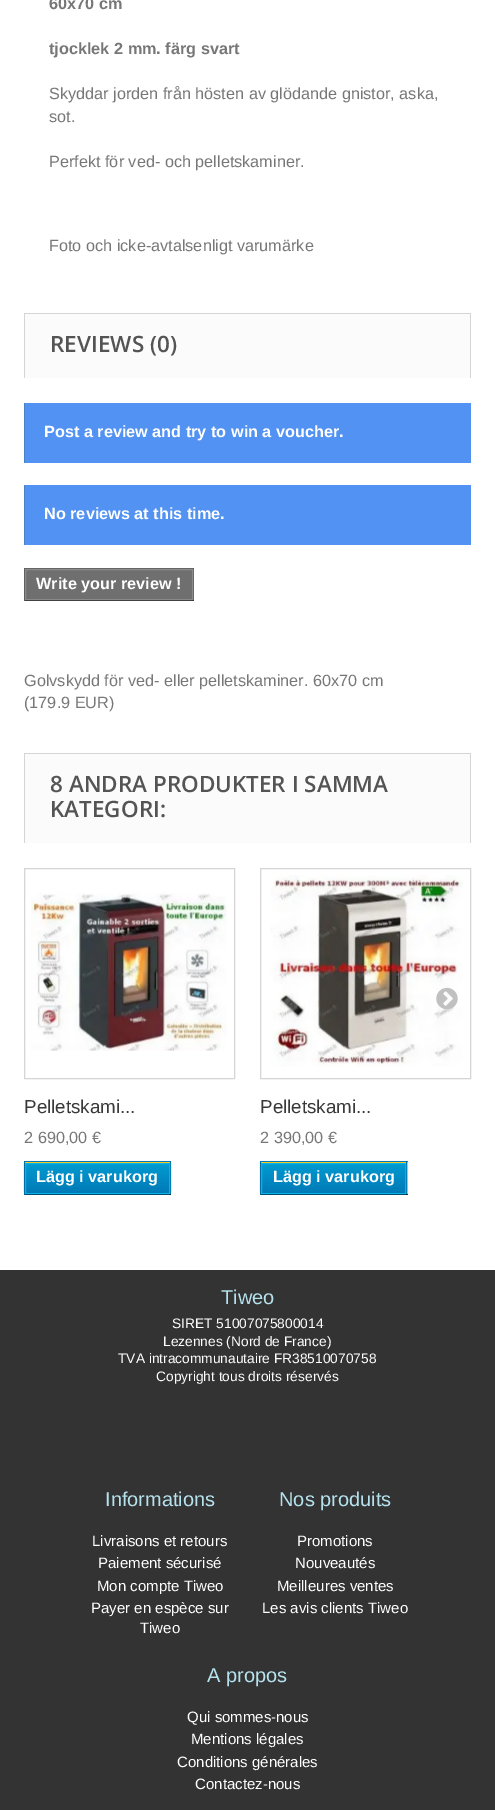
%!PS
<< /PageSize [495 1810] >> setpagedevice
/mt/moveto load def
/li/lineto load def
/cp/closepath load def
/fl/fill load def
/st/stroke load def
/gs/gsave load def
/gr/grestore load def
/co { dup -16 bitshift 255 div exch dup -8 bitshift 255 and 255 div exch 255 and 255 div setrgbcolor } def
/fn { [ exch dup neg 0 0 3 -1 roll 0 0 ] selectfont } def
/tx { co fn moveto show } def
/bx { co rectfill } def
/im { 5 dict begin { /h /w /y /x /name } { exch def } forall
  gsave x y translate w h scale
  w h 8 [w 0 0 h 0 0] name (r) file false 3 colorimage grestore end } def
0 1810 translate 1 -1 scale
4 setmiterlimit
0 0 495 1810 16#FFFFFF bx
25 314 445 64 16#FBFBFB bx
24 313 447 1 16#D6D4D4 bx
470 313 1 65 16#D6D4D4 bx
24 313 1 65 16#D6D4D4 bx
25 403 446 60 16#5192F3 bx
24 403 1 60 16#4B80C3 bx
25 485 446 60 16#5192F3 bx
24 485 1 60 16#4B80C3 bx
24 568 170 1 16#666666 bx
193 568 1 33 16#5F5F5F bx
24 600 170 1 16#292929 bx
24 568 1 33 16#5F5F5F bx
16#6F6F6F co
25.5 569.5 mt 192.5 569.5 li 192.5 599.5 li 25.5 599.5 li cp gs fl gr
16#8B8A8A co
st
25 754 445 89 16#FBFBFB bx
24 753 447 1 16#D6D4D4 bx
470 753 1 90 16#D6D4D4 bx
24 753 1 90 16#D6D4D4 bx
260.5 868.5 210 210 rectstroke
(media/4.raw) 270 875 193 192 im
(media/1.raw) 436 987 22 23 im
24.5 868.5 210 210 rectstroke
(media/2.raw) 31 893 196 158 im
25 1162 145 1 16#F4B61B bx
(media/3.raw) 23 1161 149 32 im
24 1161 147 1 16#0079B6 bx
170 1161 1 34 16#006FA8 bx
24 1194 147 1 16#012740 bx
24 1161 1 34 16#006FA8 bx
gs 26 1164 mt 169 1164 li 169 1193 li 26 1193 li cp clip newpath
<< /ShadingType 2 /ColorSpace /DeviceRGB /Coords [98 1164 98 1193] /Extend [true true] /Function << /FunctionType 2 /Domain [0 1] /C0 [0 .604 .816] /C1 [0 .478 .718] /N 1 >> >> shfill gr
16#06B2E6 co
25.5 1163.5 144 30 rectstroke
261 1162 147 32 16#F4B61B bx
(media/5.raw) 259 1161 149 32 im
260 1161 148 1 16#0079B6 bx
406 1161 1 34 16#006FA8 bx
260 1194 148 1 16#012740 bx
260 1161 1 34 16#006FA8 bx
gs 262 1164 mt 405 1164 li 405 1193 li 262 1193 li cp clip newpath
<< /ShadingType 2 /ColorSpace /DeviceRGB /Coords [334 1164 334 1193] /Extend [true true] /Function << /FunctionType 2 /Domain [0 1] /C0 [0 .604 .816] /C1 [0 .478 .718] /N 1 >> >> shfill gr
16#06B2E6 co
261.5 1163.5 144 30 rectstroke
0 1270 495 540 16#333333 bx
(60x70 cm) 49 9 /LiberationSans-Bold 16.25 16#777777 tx
(tjocklek 2 mm. färg svart) 49 54 /LiberationSans-Bold 16.25 16#777777 tx
(Skyddar jorden från hösten av glödande gnistor, aska,) 49 99 /LiberationSans-Regular 16.25 16#777777 tx
(sot.) 49 122 /LiberationSans-Regular 16.25 16#777777 tx
(Perfekt för ved- och pelletskaminer.) 49 167 /LiberationSans-Regular 16.25 16#777777 tx
(Foto och icke-avtalsenligt varumärke) 49 251 /LiberationSans-Regular 16.25 16#777777 tx
(REVIEWS \(0\)) 50 352 /OpenSans-SemiBold 22.5 16#555454 tx
(Post a review and try to win a voucher.) 44 437 /LiberationSans-Bold 16.25 16#FFFFFF tx
(No reviews at this time.) 44 519 /LiberationSans-Bold 16.25 16#FFFFFF tx
(Write your review !) 36 589 /LiberationSans-Bold 16.25 16#FFFFFF tx
(Golvskydd för ved- eller pelletskaminer. 60x70 cm) 24 686 /LiberationSans-Regular 16.25 16#777777 tx
(\(179.9 EUR\)) 24 708 /LiberationSans-Regular 16.25 16#777777 tx
(8 ANDRA PRODUKTER I SAMMA) 50 792 /OpenSans-SemiBold 22.5 16#555454 tx
(KATEGORI:) 50 817 /OpenSans-SemiBold 22.5 16#555454 tx
(Pelletskami...) 24 1113 /LiberationSans-Regular 18.75 16#3A3939 tx
(2 690,00 €) 24 1143 /LiberationSans-Regular 16.25 16#777777 tx
(Lägg i varukorg) 36 1182 /LiberationSans-Bold 16.25 16#FFFFFF tx
(Pelletskami...) 260 1113 /LiberationSans-Regular 18.75 16#3A3939 tx
(2 390,00 €) 260 1143 /LiberationSans-Regular 16.25 16#777777 tx
(Lägg i varukorg) 273 1182 /LiberationSans-Bold 16.25 16#FFFFFF tx
(Tiweo) 221 1304 /LiberationSans-Regular 20 16#B6E2ED tx
(SIRET 51007075800014) 172 1328 /LiberationSans-Regular 13.75 16#FFFFFF tx
(Lezennes \(Nord de France\)) 163 1346 /LiberationSans-Regular 13.75 16#FFFFFF tx
(TVA intracommunautaire FR38510070758) 118 1363 /LiberationSans-Regular 13.75 16#FFFFFF tx
(Copyright tous droits réservés) 156 1381 /LiberationSans-Regular 13.75 16#FFFFFF tx
(Informations) 105 1506 /LiberationSans-Regular 20 16#B6E2ED tx
(Livraisons et retours) 92 1546 /LiberationSans-Regular 15 16#FFFFFF tx
(Paiement sécurisé) 98 1568 /LiberationSans-Regular 15 16#FFFFFF tx
(Mon compte Tiweo) 97 1591 /LiberationSans-Regular 15 16#FFFFFF tx
(Payer en espèce sur) 91 1613 /LiberationSans-Regular 15 16#FFFFFF tx
(Tiweo) 140 1633 /LiberationSans-Regular 15 16#FFFFFF tx
(Nos produits) 279 1506 /LiberationSans-Regular 20 16#B6E2ED tx
(Promotions) 297 1546 /LiberationSans-Regular 15 16#FFFFFF tx
(Nouveautés) 295 1568 /LiberationSans-Regular 15 16#FFFFFF tx
(Meilleures ventes) 277 1591 /LiberationSans-Regular 15 16#FFFFFF tx
(Les avis clients Tiweo) 262 1613 /LiberationSans-Regular 15 16#FFFFFF tx
(A propos) 207 1682 /LiberationSans-Regular 20 16#B6E2ED tx
(Qui sommes-nous) 187 1722 /LiberationSans-Regular 15 16#FFFFFF tx
(Mentions légales) 191 1744 /LiberationSans-Regular 15 16#FFFFFF tx
(Conditions générales) 177 1767 /LiberationSans-Regular 15 16#FFFFFF tx
(Contactez-nous) 195 1789 /LiberationSans-Regular 15 16#FFFFFF tx
showpage
